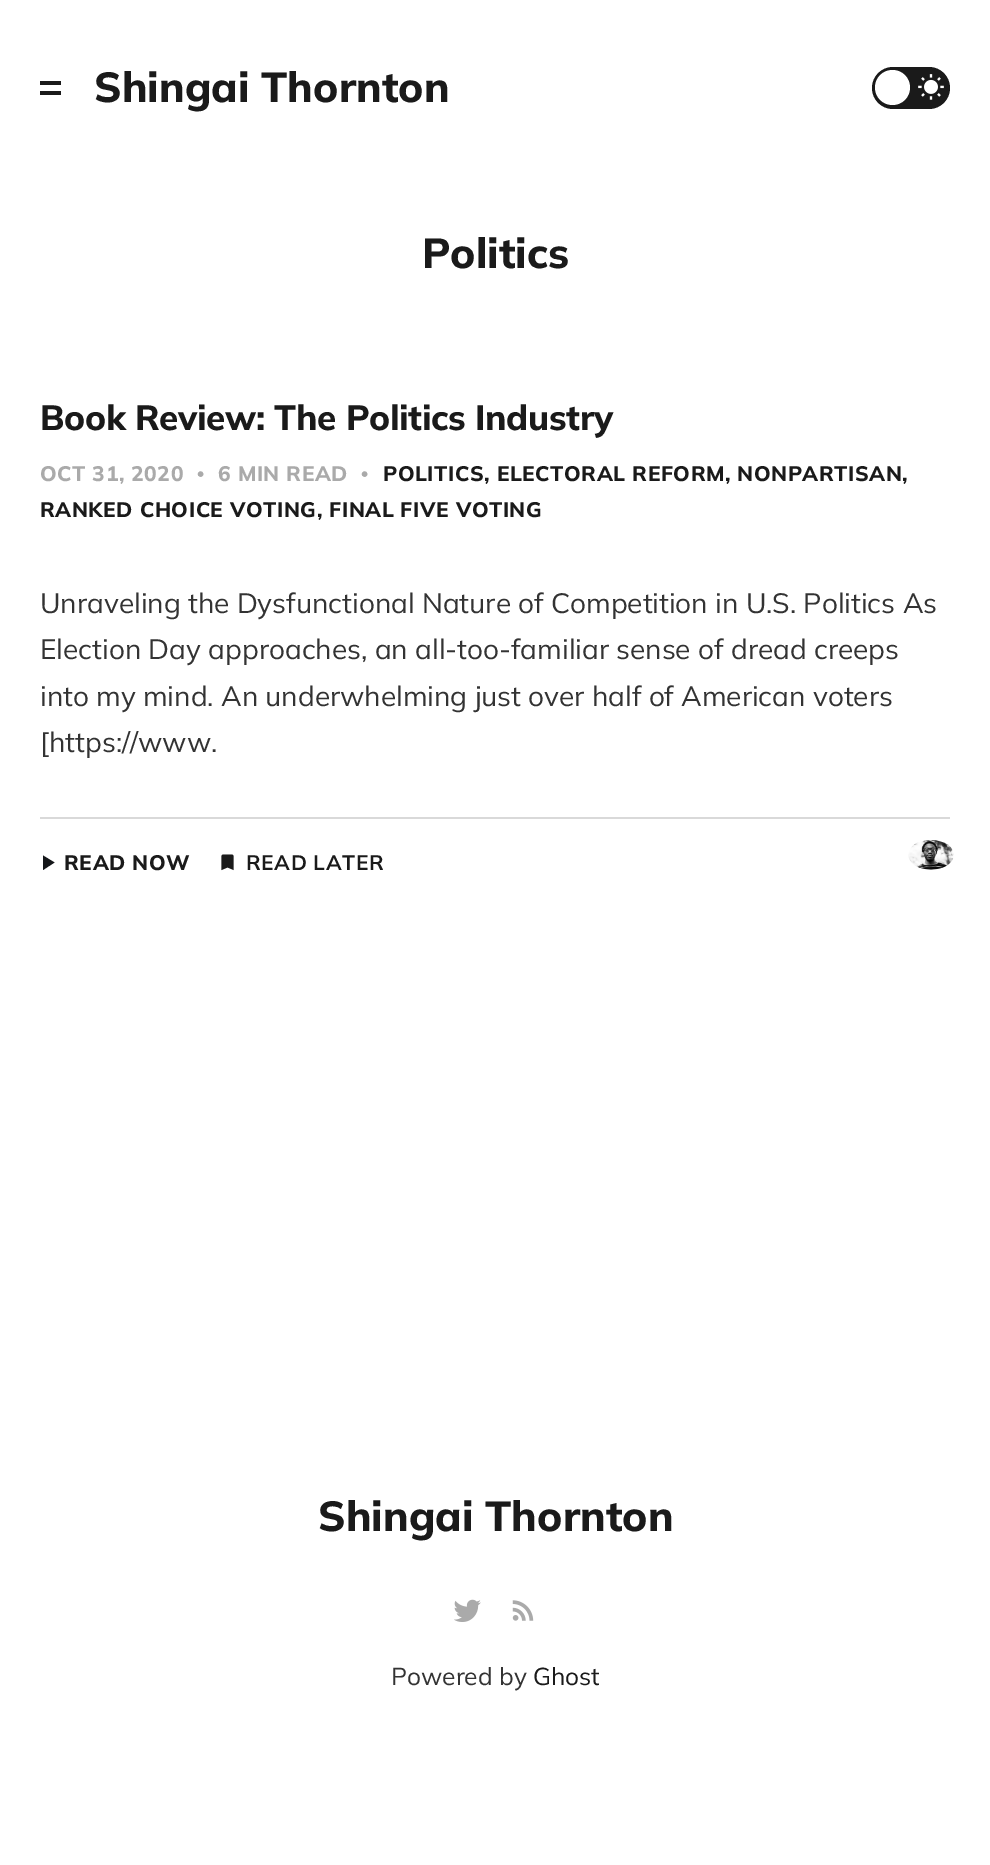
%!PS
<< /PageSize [990 1865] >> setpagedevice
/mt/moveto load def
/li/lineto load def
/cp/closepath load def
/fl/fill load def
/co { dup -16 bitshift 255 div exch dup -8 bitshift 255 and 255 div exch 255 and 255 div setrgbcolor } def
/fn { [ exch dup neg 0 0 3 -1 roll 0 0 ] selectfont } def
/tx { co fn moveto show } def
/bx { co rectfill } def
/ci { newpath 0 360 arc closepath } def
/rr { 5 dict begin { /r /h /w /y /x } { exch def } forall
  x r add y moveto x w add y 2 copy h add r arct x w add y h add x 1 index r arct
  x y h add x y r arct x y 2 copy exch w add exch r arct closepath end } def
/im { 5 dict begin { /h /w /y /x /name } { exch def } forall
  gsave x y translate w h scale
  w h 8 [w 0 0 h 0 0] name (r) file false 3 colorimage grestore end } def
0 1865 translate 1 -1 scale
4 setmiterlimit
0 0 990 1865 16#FFFFFF bx
40 81 21 4 16#1A1A1A bx
40 91 21 4 16#1A1A1A bx
872 67 78 42 21 rr fl
16#FFFFFF co
892.5 87.5 17.5 ci fl
(media/1.raw) 918 74 26 26 im
40 817 910 2 16#D9D9D9 bx
16#15171A co
43 855.5 mt 43 870 li 54.5 862.5 li cp fl
(media/2.raw) 221 854 13 17 im
(media/3.raw) 908 840 46 30 im
(media/4.raw) 454 1599 27 23 im
(media/5.raw) 512 1600 22 21 im
(Shingai Thornton) 94 102 /Mulish-ExtraBold 42 16#1A1A1A tx
(Politics) 422 268 /Mulish-ExtraBold 42 16#1A1A1A tx
/Mulish-ExtraBold 35 fn
40 430 mt -.35 0 (Book Review: The Politics Industry) ashow
/Mulish-ExtraBold 21 fn
16#AAAAAA co
40 481 mt .55 0 (OCT 31, 2020) ashow
/LiberationSerif-Bold 21 fn
197 481 mt .55 0 (•) ashow
/Mulish-ExtraBold 21 fn
218 481 mt .55 0 (6 MIN READ) ashow
/LiberationSerif-Bold 21 fn
361 481 mt .55 0 (•) ashow
/Mulish-ExtraBold 21 fn
16#1A1A1A co
383 481 mt .55 0 (POLITICS, ELECTORAL REFORM, NONPARTISAN,) ashow
40 517 mt .55 0 (RANKED CHOICE VOTING, FINAL FIVE VOTING) ashow
(Unraveling the Dysfunctional Nature of Competition in U.S. Politics As) 40 613 /Mulish-Regular 28 16#333333 tx
(Election Day approaches, an all-too-familiar sense of dread creeps) 40 659 /Mulish-Regular 28 16#333333 tx
(into my mind. An underwhelming just over half of American voters) 40 706 /Mulish-Regular 28 16#333333 tx
([https://www.) 40 752 /Mulish-Regular 28 16#333333 tx
/Mulish-ExtraBold 21 fn
16#1A1A1A co
64 870 mt .55 0 (READ NOW) ashow
/Mulish-Bold 21 fn
246 870 mt .55 0 (READ LATER) ashow
(Shingai Thornton) 318 1531 /Mulish-ExtraBold 42 16#1A1A1A tx
(Powered by) 391 1685 /Mulish-Regular 24.5 16#333333 tx
(Ghost) 533 1685 /Mulish-Regular 24.5 16#1A1A1A tx
showpage
